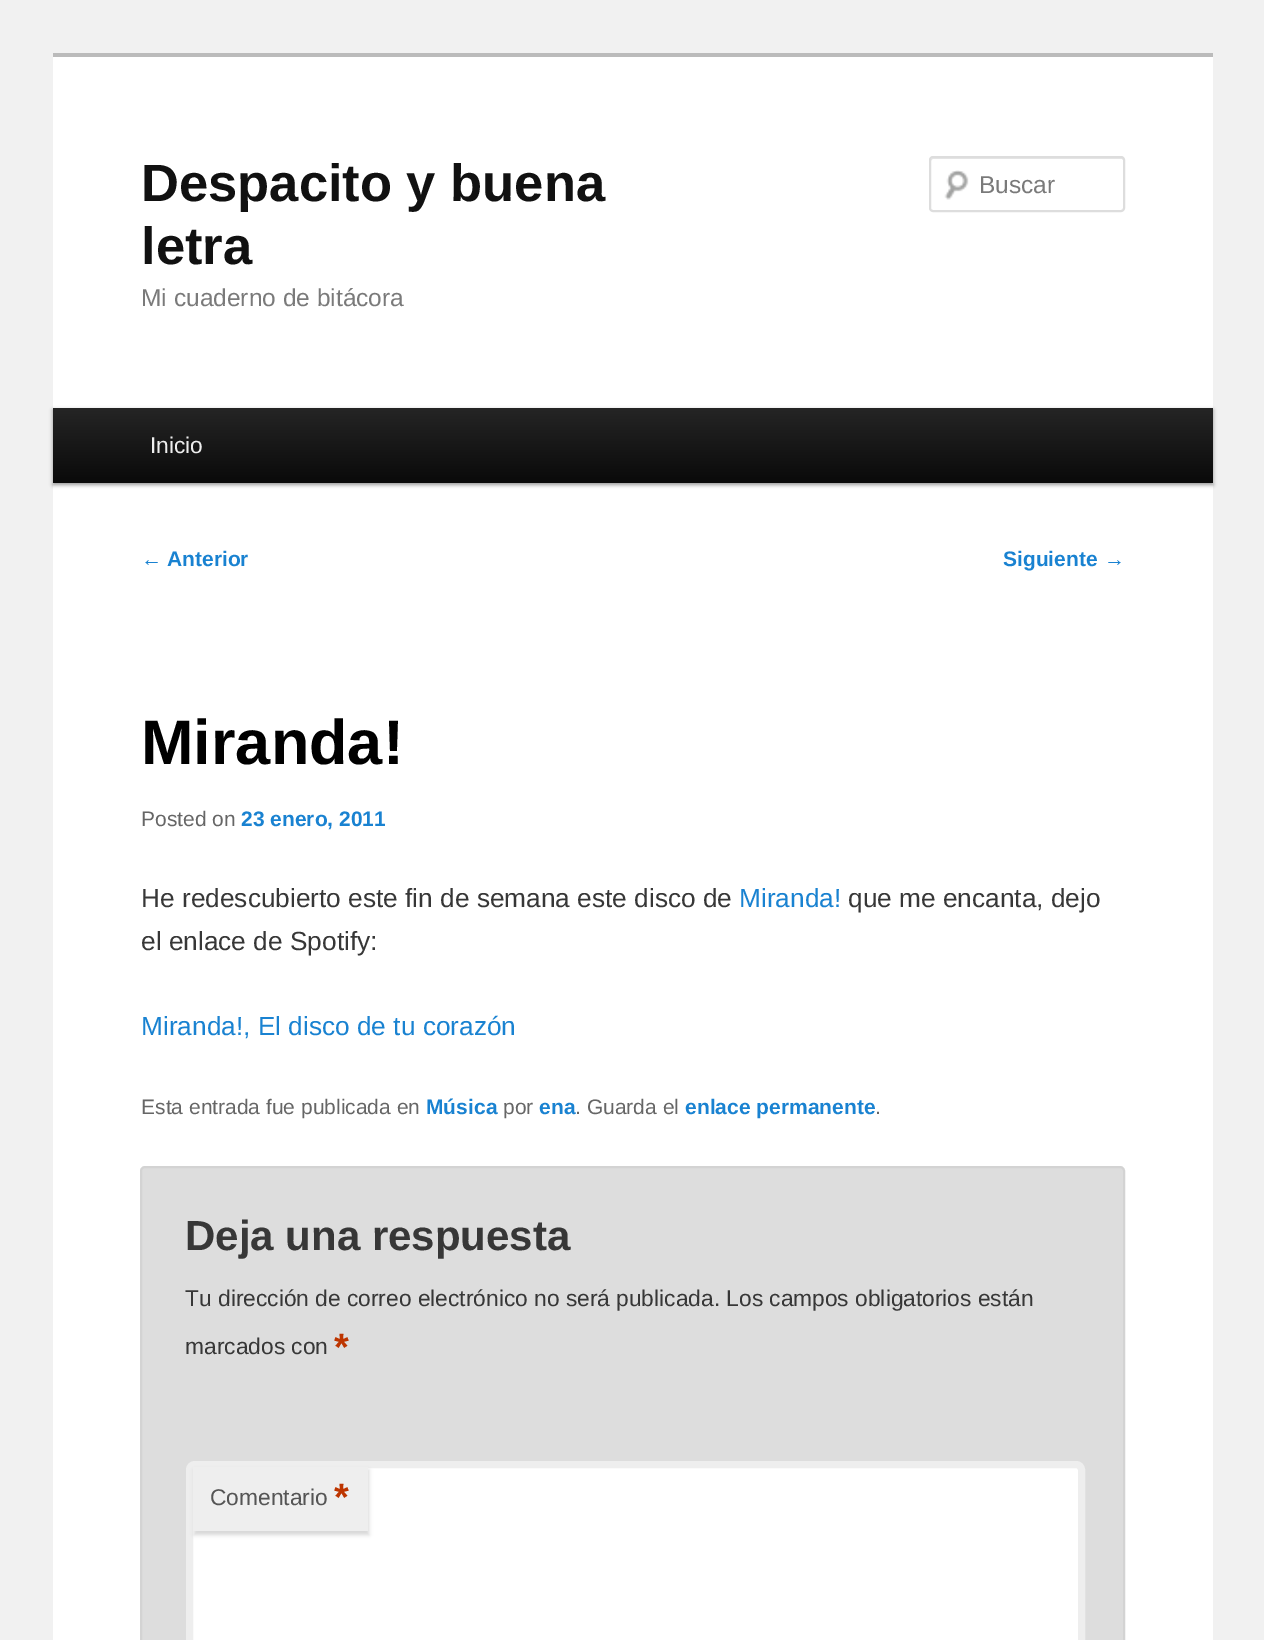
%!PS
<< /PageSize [1264 1640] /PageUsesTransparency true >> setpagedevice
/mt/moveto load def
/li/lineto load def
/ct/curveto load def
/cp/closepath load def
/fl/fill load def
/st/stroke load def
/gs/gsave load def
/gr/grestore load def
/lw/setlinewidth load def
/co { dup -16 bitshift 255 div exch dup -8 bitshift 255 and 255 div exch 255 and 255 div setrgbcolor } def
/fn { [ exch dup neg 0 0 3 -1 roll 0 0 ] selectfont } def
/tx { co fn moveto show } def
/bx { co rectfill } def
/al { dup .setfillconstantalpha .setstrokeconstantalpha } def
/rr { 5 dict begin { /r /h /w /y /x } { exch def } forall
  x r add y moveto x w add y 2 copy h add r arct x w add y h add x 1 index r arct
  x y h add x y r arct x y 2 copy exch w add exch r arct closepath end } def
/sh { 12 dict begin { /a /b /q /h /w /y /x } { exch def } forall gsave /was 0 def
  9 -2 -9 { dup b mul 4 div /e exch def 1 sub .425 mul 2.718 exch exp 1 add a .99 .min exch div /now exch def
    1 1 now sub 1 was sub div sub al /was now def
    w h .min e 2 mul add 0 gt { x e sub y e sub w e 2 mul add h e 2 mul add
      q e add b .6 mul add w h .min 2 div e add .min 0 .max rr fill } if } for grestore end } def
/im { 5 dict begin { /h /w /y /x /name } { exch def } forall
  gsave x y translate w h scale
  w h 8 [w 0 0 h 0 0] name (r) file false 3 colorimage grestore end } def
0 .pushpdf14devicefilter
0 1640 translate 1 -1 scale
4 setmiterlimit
0 0 1264 1640 16#F1F1F1 bx
53 57 1160 1583 16#FFFFFF bx
53 53 1160 4 16#BBBBBB bx
(media/1.raw) 944 170 25 30 im
16#E6E6E6 co
933 159 mt 1122 159 li 1124 160 li 1124 161 li 1124 160 li 1124 159 1123 158 1122 158 ct 933 158 li 932 158 931 159 931 160 ct 931 161 li 931 160 932 159 933 159 ct cp fl
16#DDDDDD co
2 lw
930 157 194 54 3 rr st
16#000000 co
53 410 1160 75 0 2 .4 sh
gs 53 408 mt 1213 408 li 1213 483 li 53 483 li cp clip newpath
<< /ShadingType 2 /ColorSpace /DeviceRGB /Coords [633 408 633 483] /Extend [true true] /Function << /FunctionType 2 /Domain [0 1] /C0 [.145 .145 .145] /C1 [.039 .039 .039] /N 1 >> >> shfill gr
16#DDDDDD co
141 1167 983 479 4 rr gs fl gr
16#D3D3D3 co
st
16#FFFFFF co
189.5 1464.5 892 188 5.5 rr gs fl gr
16#EEEEEE co
7 lw
st
16#CCCCCC co
194 1470 175 65 0 2 .8 sh
193 1467 175 64 16#EEEEEE bx
(Despacito y buena) 141 201 /LiberationSans-Bold 52.5 16#111111 tx
(letra) 141 264 /LiberationSans-Bold 52.5 16#111111 tx
(Mi cuaderno de bitácora) 141 306 /LiberationSans-Regular 24.5 16#7A7A7A tx
(Buscar) 979 193 /LiberationSans-Regular 24.5 16#7A7A7A tx
(Inicio) 150 453 /LiberationSans-Regular 22.75 16#EEEEEE tx
(←) 141 566 /LiberationSans-Regular 21 16#1982D1 tx
(Anterior) 167 566 /LiberationSans-Bold 21 16#1982D1 tx
(Siguiente) 1003 566 /LiberationSans-Bold 21 16#1982D1 tx
(→) 1104 566 /LiberationSans-Regular 21 16#1982D1 tx
(Miranda!) 141 764 /LiberationSans-Bold 63 16#000000 tx
(Posted on) 141 826 /LiberationSans-Regular 21 16#666666 tx
(23 enero, 2011) 241 826 /LiberationSans-Bold 21 16#1982D1 tx
(He redescubierto este fin de semana este disco de) 141 907 /LiberationSans-Regular 26.25 16#373737 tx
(Miranda!) 739 907 /LiberationSans-Regular 26.25 16#1982D1 tx
(que me encanta, dejo) 848 907 /LiberationSans-Regular 26.25 16#373737 tx
(el enlace de Spotify:) 141 950 /LiberationSans-Regular 26.25 16#373737 tx
(Miranda!, El disco de tu corazón) 141 1035 /LiberationSans-Regular 26.25 16#1982D1 tx
(Esta entrada fue publicada en) 141 1114 /LiberationSans-Regular 21 16#666666 tx
(Música) 426 1114 /LiberationSans-Bold 21 16#1982D1 tx
(por) 503 1114 /LiberationSans-Regular 21 16#666666 tx
(ena) 539 1114 /LiberationSans-Bold 21 16#1982D1 tx
(. Guarda el) 575 1114 /LiberationSans-Regular 21 16#666666 tx
(enlace permanente) 685 1114 /LiberationSans-Bold 21 16#1982D1 tx
(.) 875 1114 /LiberationSans-Regular 21 16#666666 tx
(Deja una respuesta) 185 1250 /LiberationSans-Bold 42 16#373737 tx
(Tu dirección de correo electrónico no será publicada. Los campos obligatorios están) 185 1306 /LiberationSans-Regular 22.75 16#373737 tx
(marcados con) 185 1354 /LiberationSans-Regular 22.75 16#373737 tx
(*) 334 1360 /LiberationSans-Bold 38 16#BD3500 tx
(Comentario) 210 1505 /LiberationSans-Regular 22.75 16#555555 tx
(*) 334 1510 /LiberationSans-Bold 38 16#BD3500 tx
.poppdf14devicefilter showpage
